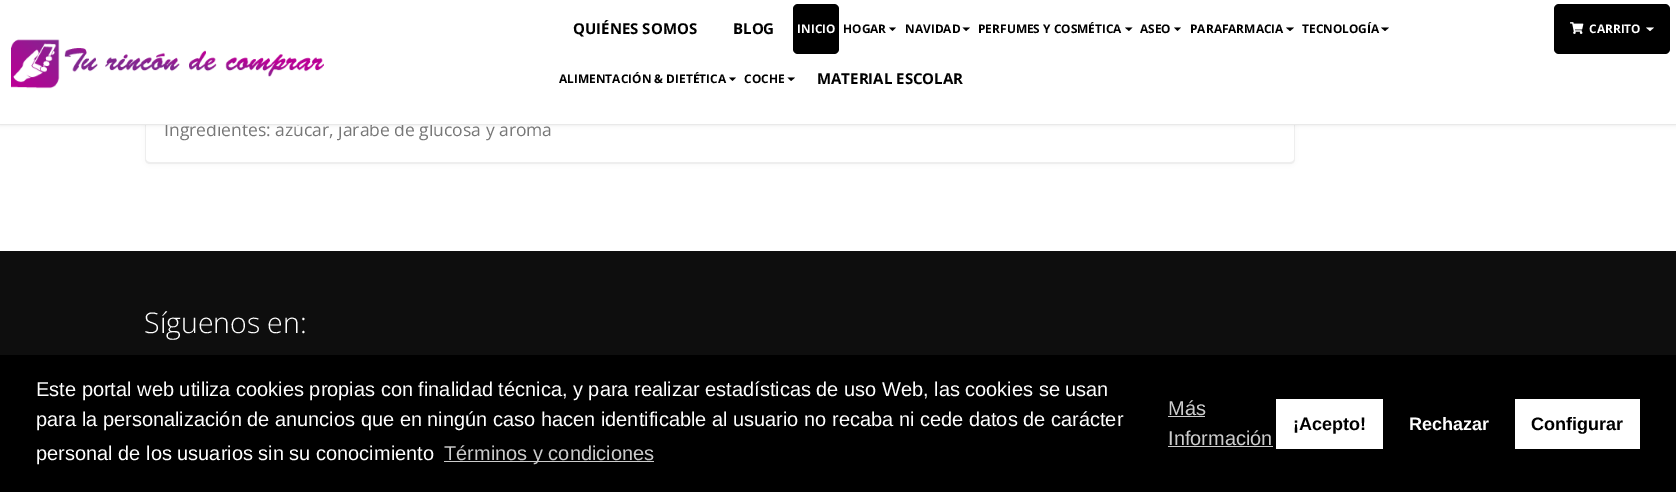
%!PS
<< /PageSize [1676 492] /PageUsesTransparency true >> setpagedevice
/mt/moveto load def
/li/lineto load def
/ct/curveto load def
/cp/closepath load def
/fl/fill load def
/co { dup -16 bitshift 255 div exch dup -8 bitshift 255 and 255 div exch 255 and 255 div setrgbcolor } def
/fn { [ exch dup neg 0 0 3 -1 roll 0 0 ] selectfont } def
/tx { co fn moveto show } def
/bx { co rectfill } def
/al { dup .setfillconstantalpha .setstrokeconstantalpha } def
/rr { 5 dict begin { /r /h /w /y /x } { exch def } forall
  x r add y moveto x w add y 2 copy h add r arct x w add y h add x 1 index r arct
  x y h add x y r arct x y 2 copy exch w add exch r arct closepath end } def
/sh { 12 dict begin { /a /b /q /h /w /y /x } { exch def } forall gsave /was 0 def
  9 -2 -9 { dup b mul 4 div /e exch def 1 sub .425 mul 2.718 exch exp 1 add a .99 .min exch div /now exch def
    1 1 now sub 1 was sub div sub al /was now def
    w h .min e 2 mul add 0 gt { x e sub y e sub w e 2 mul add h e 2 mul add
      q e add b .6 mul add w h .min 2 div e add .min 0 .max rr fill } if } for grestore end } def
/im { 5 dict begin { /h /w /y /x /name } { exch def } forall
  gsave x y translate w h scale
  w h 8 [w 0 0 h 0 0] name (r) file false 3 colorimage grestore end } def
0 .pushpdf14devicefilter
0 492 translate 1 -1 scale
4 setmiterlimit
0 0 1676 492 16#FFFFFF bx
16#000000 co
145 99 1150 66 5 3 .04 sh
16#FFFFFF co
145 98 mt 1295 98 li 1295 159 li 1295 162 1293 164 1290 164 ct 150 164 li 147 164 145 162 145 159 ct cp fl
16#EEEEEE co
145 98 mt 1295 98 li 1295 159 li 1295 162 1293 164 1290 164 ct 150 164 li 147 164 145 162 145 159 ct cp 146 98 mt 1294 98 li 1294 159 li 1294 161 1292 162 1290 162 ct 150 162 li 148 162 146 161 146 159 ct cp eofill
16#000000 co
0 -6 1676 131 0 2 .1 sh
0 251 1676 104 16#0E0E0E bx
0 355 1676 137 16#000000 bx
444 461 210 1 16#CCCCCC bx
1168 416 37 1 16#CCCCCC bx
1168 446 105 1 16#CCCCCC bx
1276 399 107 50 16#FFFFFF bx
1515 399 125 50 16#FFFFFF bx
(Ingredientes: azúcar, jarabe de glucosa y aroma) 164 136 /OpenSans-Regular 17.5 16#777777 tx
0 0 1676 124 16#FFFFFF bx
16#000000 co
787.5 77.5 mt 795 77.5 li 791 81 li cp fl
(COCHE) 744 83 /OpenSans-Bold 11.9 16#000000 tx
1381 27.5 mt 1389 27.5 li 1385 31 li cp fl
(TECNOLOGÍA) 1302 33 /OpenSans-Bold 11.9 16#000000 tx
1286 27.5 mt 1294 27.5 li 1290 31 li cp fl
(PARAFARMACIA) 1190 33 /OpenSans-Bold 11.9 16#000000 tx
1174 27.5 mt 1181 27.5 li 1177.5 31 li cp fl
(ASEO) 1140 33 /OpenSans-Bold 11.9 16#000000 tx
1125 27.5 mt 1132.5 27.5 li 1129 31 li cp fl
(PERFUMES Y COSMÉTICA) 978 33 /OpenSans-Bold 11.9 16#000000 tx
(media/1.raw) 11 39 313 50 im
1554 4 116 50 5 rr fl
16#FFFFFF co
1646 27.5 mt 1654 27.5 li 1650 31 li cp fl
(CARRITO) 1589 33 /OpenSans-Bold 11.9 16#FFFFFF tx
(media/2.raw) 1570 22 14 12 im
(MATERIAL ESCOLAR) 817 84 /OpenSans-Bold 15 16#000000 tx
729 77.5 mt 736 77.5 li 732.5 81 li cp fl
(ALIMENTACIÓN & DIETÉTICA) 559 83 /OpenSans-Bold 11.9 16#000000 tx
962.5 27.5 mt 970 27.5 li 966 31 li cp fl
(NAVIDAD) 905 33 /OpenSans-Bold 11.9 16#000000 tx
889 27.5 mt 896 27.5 li 892.5 31 li cp fl
(HOGAR) 843 33 /OpenSans-Bold 11.9 16#000000 tx
793 4 46 50 5 rr fl
(INICIO) 797 33 /OpenSans-Bold 11.9 16#FFFFFF tx
(BLOG) 733 34 /OpenSans-Bold 15 16#000000 tx
(QUIÉNES SOMOS) 573 34 /OpenSans-Bold 15 16#000000 tx
0 124 1676 1 16#E9E9E9 bx
(Síguenos en:) 144 333 /OpenSans-Light 28.5 16#FFFFFF tx
(Este portal web utiliza cookies propias con finalidad técnica, y para realizar estadísticas de uso Web, las cookies se usan) 36 396 /LiberationSans-Regular 20 16#FFFFFF tx
(para la personalización de anuncios que en ningún caso hacen identificable al usuario no recaba ni cede datos de carácter) 36 426 /LiberationSans-Regular 20 16#FFFFFF tx
(personal de los usuarios sin su conocimiento) 36 460 /LiberationSans-Regular 20 16#FFFFFF tx
(Términos y condiciones) 444 460 /LiberationSans-Regular 20 16#CCCCCC tx
(Más) 1168 415 /LiberationSans-Regular 20 16#CCCCCC tx
(Información) 1168 445 /LiberationSans-Regular 20 16#CCCCCC tx
(¡Acepto!) 1293 430 /LiberationSans-Bold 18 16#000000 tx
(Rechazar) 1409 430 /LiberationSans-Bold 18 16#FFFFFF tx
(Configurar) 1531 430 /LiberationSans-Bold 18 16#000000 tx
.poppdf14devicefilter showpage
